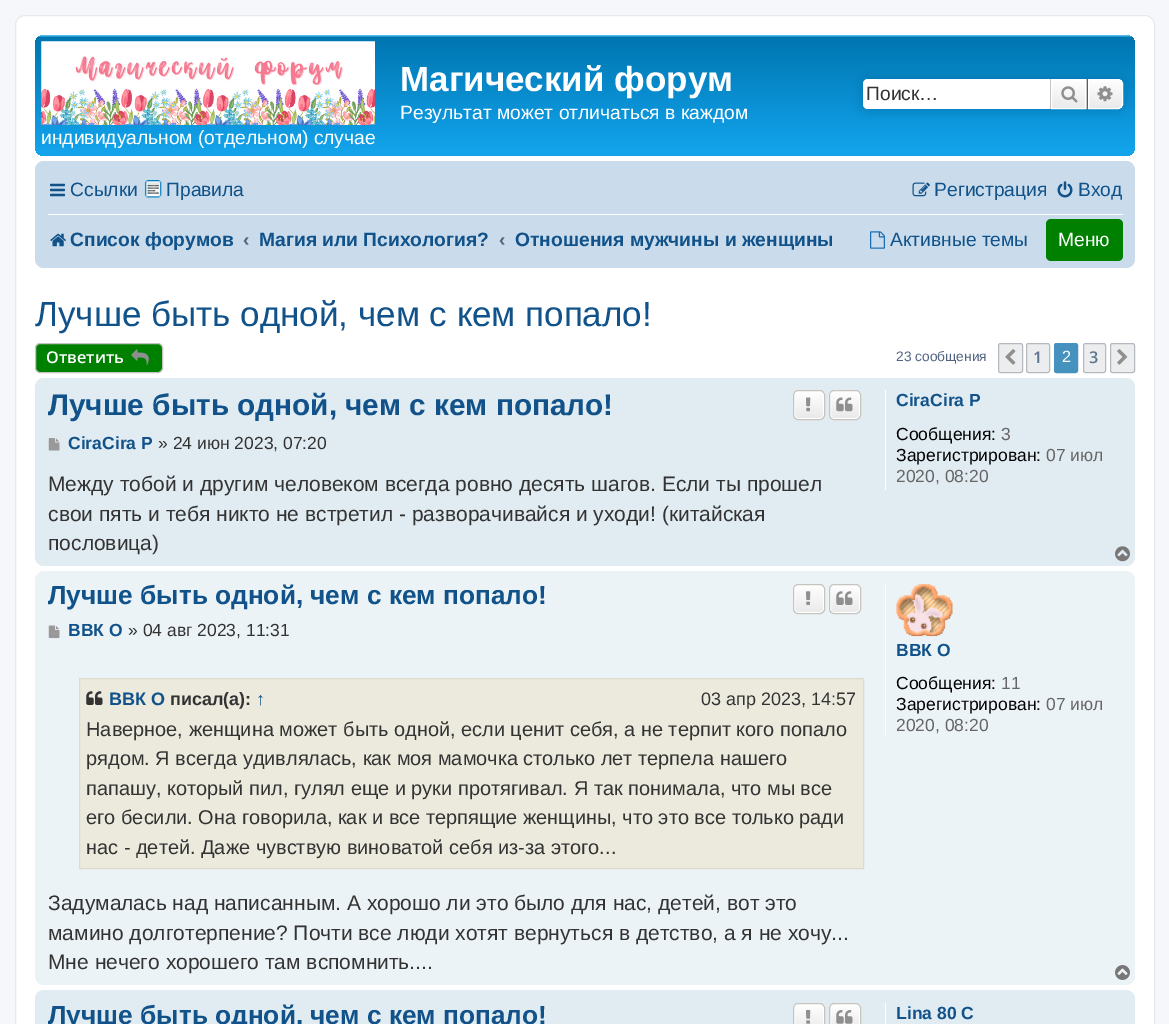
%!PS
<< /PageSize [1169 1024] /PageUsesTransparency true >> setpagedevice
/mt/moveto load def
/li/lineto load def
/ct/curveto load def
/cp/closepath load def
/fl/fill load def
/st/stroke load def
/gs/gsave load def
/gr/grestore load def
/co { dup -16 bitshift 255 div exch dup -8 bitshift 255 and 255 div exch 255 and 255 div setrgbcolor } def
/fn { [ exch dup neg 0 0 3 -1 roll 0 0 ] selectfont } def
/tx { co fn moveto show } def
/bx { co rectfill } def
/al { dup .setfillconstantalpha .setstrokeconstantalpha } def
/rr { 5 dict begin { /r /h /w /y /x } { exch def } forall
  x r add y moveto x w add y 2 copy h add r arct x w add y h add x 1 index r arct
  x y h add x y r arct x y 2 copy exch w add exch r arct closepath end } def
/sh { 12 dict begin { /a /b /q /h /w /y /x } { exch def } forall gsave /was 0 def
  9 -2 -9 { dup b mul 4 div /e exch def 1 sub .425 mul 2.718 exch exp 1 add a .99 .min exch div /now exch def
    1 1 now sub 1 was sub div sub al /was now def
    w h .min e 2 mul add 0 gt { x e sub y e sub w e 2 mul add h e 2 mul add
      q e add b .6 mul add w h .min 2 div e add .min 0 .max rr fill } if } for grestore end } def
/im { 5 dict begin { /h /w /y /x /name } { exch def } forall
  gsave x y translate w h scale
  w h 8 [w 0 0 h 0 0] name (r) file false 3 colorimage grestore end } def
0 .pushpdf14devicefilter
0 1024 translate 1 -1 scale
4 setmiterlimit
0 0 1169 1024 16#F5F7FA bx
16#FFFFFF co
15.5 15.5 1139 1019 9.5 rr gs fl gr
16#E6E9ED co
st
gs 35 35 1100 121 9 rr clip newpath
<< /ShadingType 2 /ColorSpace /DeviceRGB /Coords [585 35 585 156] /Extend [true true] /Function << /FunctionType 3 /Domain [0 1] /Functions [<< /FunctionType 2 /Domain [0 1] /C0 [.416 .808 1] /C1 [0 .463 .694] /N 1 >> << /FunctionType 2 /Domain [0 1] /C0 [0 .463 .694] /C1 [.071 .639 .922] /N 1 >> << /FunctionType 2 /Domain [0 1] /C0 [.071 .639 .922] /C1 [.071 .639 .922] /N 1 >>] /Bounds [.02 .95] /Encode [0 1 0 1 0 1] >> >> shfill gr
(media/1.raw) 41 41 334 84 im
16#0075B0 co
863 79 260 30 5 6 1 sh
16#FFFFFF co
868 79 mt 1050 79 li 1050 109 li 868 109 li 865 109 863 107 863 104 ct 863 84 li 863 81 865 79 868 79 ct cp fl
gs 1052 80 mt 1085 80 li 1085 108 li 1052 108 li cp clip newpath
<< /ShadingType 2 /ColorSpace /DeviceRGB /Coords [1069 79 1069 109] /Extend [true true] /Function << /FunctionType 2 /Domain [0 1] /C0 [1 1 1] /C1 [.914 .914 .914] /N 1 >> >> shfill gr
1051.5 79.5 34 29 rectstroke
1086 79 1 30 16#C7C3BF bx
1050 79 1 30 16#C7C3BF bx
(media/2.raw) 1061 86 17 17 im
gs 1088.5 79.5 mt 1118 79.5 li 1120.5 79.5 1122.5 81.5 1122.5 84 ct 1122.5 104 li 1122.5 106.5 1120.5 108.5 1118 108.5 ct 1088.5 108.5 li cp clip newpath
<< /ShadingType 2 /ColorSpace /DeviceRGB /Coords [1105 79 1105 109] /Extend [true true] /Function << /FunctionType 2 /Domain [0 1] /C0 [1 1 1] /C1 [.914 .914 .914] /N 1 >> >> shfill gr
16#FFFFFF co
1088.5 79.5 mt 1118 79.5 li 1120.5 79.5 1122.5 81.5 1122.5 84 ct 1122.5 104 li 1122.5 106.5 1120.5 108.5 1118 108.5 ct 1088.5 108.5 li cp st
(media/3.raw) 1097 86 16 16 im
16#CADCEB co
35 161 1100 107 9 rr fl
(media/4.raw) 50 183 15 14 im
(media/5.raw) 144 180 18 18 im
(media/6.raw) 912 182 18 15 im
(media/7.raw) 1057 181 16 17 im
48 214 1075 1 16#FFFFFF bx
(media/8.raw) 50 233 16 14 im
(media/9.raw) 870 231 15 18 im
16#008000 co
1046 219 77 42 5 rr fl
35.5 343.5 127 29 4.5 rr gs fl gr
16#C7C3BF co
st
(media/10.raw) 131 349 18 16 im
16#ECEDEE co
998.5 343.5 24 29 2 rr gs fl gr
16#B4BAC0 co
st
(media/11.raw) 1005 349 11 16 im
16#ECEDEE co
1026.5 343.5 23 29 2 rr gs fl gr
16#B4BAC0 co
st
16#4692BF co
1054.5 343.5 23 29 2 rr gs fl gr
st
16#ECEDEE co
1083.5 343.5 22 29 2 rr gs fl gr
16#B4BAC0 co
st
16#ECEDEE co
1110.5 343.5 24 29 2 rr gs fl gr
16#B4BAC0 co
st
(media/12.raw) 1117 349 11 16 im
16#E1EBF2 co
35 378 1100 188 9 rr fl
gs
793 390 32 30 5 rr clip newpath
gs 793 391 mt 825 391 li 825 419 li 793 419 li cp clip newpath
<< /ShadingType 2 /ColorSpace /DeviceRGB /Coords [809 391 809 419] /Extend [true true] /Function << /FunctionType 2 /Domain [0 1] /C0 [1 1 1] /C1 [.914 .914 .914] /N 1 >> >> shfill gr
gr
16#FFFFFF co
794.5 391.5 29 27 3.5 rr st
16#C7C3BF co
793.5 390.5 31 29 4.5 rr st
(media/13.raw) 806 397 5 15 im
gs
829 390 32 30 5 rr clip newpath
gs 829 391 mt 861 391 li 861 419 li 829 419 li cp clip newpath
<< /ShadingType 2 /ColorSpace /DeviceRGB /Coords [845 391 845 419] /Extend [true true] /Function << /FunctionType 2 /Domain [0 1] /C0 [1 1 1] /C1 [.914 .914 .914] /N 1 >> >> shfill gr
gr
16#FFFFFF co
830.5 391.5 29 27 3.5 rr st
16#C7C3BF co
829.5 390.5 31 29 4.5 rr st
(media/14.raw) 836 397 17 15 im
(media/15.raw) 48 438 12 13 im
885 390 1 100 16#FFFFFF bx
(media/16.raw) 1115 546 15 16 im
16#ECF3F7 co
35 571 1100 414 9 rr fl
gs
793 584 32 30 5 rr clip newpath
gs 793 585 mt 825 585 li 825 613 li 793 613 li cp clip newpath
<< /ShadingType 2 /ColorSpace /DeviceRGB /Coords [809 585 809 613] /Extend [true true] /Function << /FunctionType 2 /Domain [0 1] /C0 [1 1 1] /C1 [.914 .914 .914] /N 1 >> >> shfill gr
gr
16#FFFFFF co
794.5 585.5 29 27 3.5 rr st
16#C7C3BF co
793.5 584.5 31 29 4.5 rr st
(media/17.raw) 806 591 5 14 im
gs
829 584 32 30 5 rr clip newpath
gs 829 585 mt 861 585 li 861 613 li 829 613 li cp clip newpath
<< /ShadingType 2 /ColorSpace /DeviceRGB /Coords [845 585 845 613] /Extend [true true] /Function << /FunctionType 2 /Domain [0 1] /C0 [1 1 1] /C1 [.914 .914 .914] /N 1 >> >> shfill gr
gr
16#FFFFFF co
830.5 585.5 29 27 3.5 rr st
16#C7C3BF co
829.5 584.5 31 29 4.5 rr st
(media/18.raw) 836 591 17 14 im
(media/19.raw) 48 625 12 14 im
16#EBEADD co
79.5 678.5 mt 863.5 678.5 li 863.5 868.5 li 79.5 868.5 li cp gs fl gr
16#DBDBCE co
st
(media/20.raw) 86 691 17 14 im
885 584 1 152 16#FFFFFF bx
(media/21.raw) 896 583 57 54 im
(media/22.raw) 1115 965 15 15 im
16#E1EBF2 co
35 990 1100 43 9 rr fl
gs
793 1003 32 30 5 rr clip newpath
gs 793 1004 mt 825 1004 li 825 1024 li 793 1024 li cp clip newpath
<< /ShadingType 2 /ColorSpace /DeviceRGB /Coords [809 1004 809 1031] /Extend [true true] /Function << /FunctionType 2 /Domain [0 1] /C0 [1 1 1] /C1 [.914 .914 .914] /N 1 >> >> shfill gr
gr
16#FFFFFF co
794.5 1004.5 29 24 3.5 rr st
16#C7C3BF co
793.5 1003.5 31 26 4.5 rr st
(media/23.raw) 806 1010 5 14 im
gs
829 1003 32 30 5 rr clip newpath
gs 829 1004 mt 861 1004 li 861 1024 li 829 1024 li cp clip newpath
<< /ShadingType 2 /ColorSpace /DeviceRGB /Coords [845 1004 845 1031] /Extend [true true] /Function << /FunctionType 2 /Domain [0 1] /C0 [1 1 1] /C1 [.914 .914 .914] /N 1 >> >> shfill gr
gr
16#FFFFFF co
830.5 1004.5 29 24 3.5 rr st
16#C7C3BF co
829.5 1003.5 31 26 4.5 rr st
(media/24.raw) 836 1010 17 14 im
885 1003 1 21 16#FFFFFF bx
(Магический форум) 400 91 /LiberationSans-Bold 35 16#FFFFFF tx
(Результат может отличаться в каждом) 400 119 /LiberationSans-Regular 19.25 16#FFFFFF tx
(индивидуальном \(отдельном\) случае) 41 144 /LiberationSans-Regular 19.25 16#FFFFFF tx
(Поиск…) 866 100 /LiberationSans-Regular 19.25 16#333333 tx
(Ссылки) 70 196 /LiberationSans-Regular 19.25 16#105289 tx
(Правила) 166 196 /LiberationSans-Regular 19.25 16#105289 tx
(Регистрация) 934 196 /LiberationSans-Regular 19.25 16#105289 tx
(Вход) 1078 196 /LiberationSans-Regular 19.25 16#105289 tx
(Список форумов) 70 246 /LiberationSans-Bold 19.25 16#105289 tx
(‹) 243 246 /LiberationSans-Bold 19.25 16#536482 tx
(Магия или Психология?) 259 246 /LiberationSans-Bold 19.25 16#105289 tx
(‹) 499 246 /LiberationSans-Bold 19.25 16#536482 tx
(Отношения мужчины и женщины) 515 246 /LiberationSans-Bold 19.25 16#105289 tx
(Активные темы) 890 246 /LiberationSans-Regular 19.25 16#105289 tx
(Меню) 1058 246 /LiberationSans-Regular 19.25 16#FFFFFF tx
(Лучше быть одной, чем с кем попало!) 35 326 /LiberationSans-Regular 35 16#105289 tx
(Ответить) 46 363 /OpenSans-SemiBold 16.25 16#FFFFFF tx
(23 сообщения) 896 361 /LiberationSans-Regular 13.75 16#536482 tx
(1) 1033 363 /OpenSans-SemiBold 16.25 16#5C758C tx
(2) 1062 362 /LiberationSans-Regular 16.25 16#FFFFFF tx
(3) 1089 363 /OpenSans-SemiBold 16.25 16#5C758C tx
(Лучше быть одной, чем с кем попало!) 48 415 /LiberationSans-Bold 29.75 16#105289 tx
(CiraCira P) 68 449 /LiberationSans-Bold 17.5 16#105289 tx
(» 24 июн 2023, 07:20) 158 449 /LiberationSans-Regular 17.5 16#333333 tx
(Между тобой и другим человеком всегда ровно десять шагов. Если ты прошел) 48 491 /LiberationSans-Regular 21 16#333333 tx
(свои пять и тебя никто не встретил - разворачивайся и уходи! \(китайская) 48 521 /LiberationSans-Regular 21 16#333333 tx
(пословица\)) 48 550 /LiberationSans-Regular 21 16#333333 tx
(CiraCira P) 896 406 /LiberationSans-Bold 17.5 16#105289 tx
(Сообщения:) 896 440 /LiberationSans-Regular 17.5 16#000000 tx
(3) 1001 440 /LiberationSans-Regular 17.5 16#666666 tx
(Зарегистрирован:) 896 461 /LiberationSans-Regular 17.5 16#000000 tx
(07 июл) 1046 461 /LiberationSans-Regular 17.5 16#666666 tx
(2020, 08:20) 896 482 /LiberationSans-Regular 17.5 16#666666 tx
(Лучше быть одной, чем с кем попало!) 48 604 /LiberationSans-Bold 26.25 16#105289 tx
(ВВК O) 68 636 /LiberationSans-Bold 17.5 16#105289 tx
(» 04 авг 2023, 11:31) 128 636 /LiberationSans-Regular 17.5 16#333333 tx
(ВВК O) 109 705 /LiberationSans-Bold 18 16#105289 tx
(писал\(а\):) 170 705 /LiberationSans-Bold 18 16#333333 tx
(↑) 256 705 /LiberationSans-Bold 18 16#105289 tx
(03 апр 2023, 14:57) 701 705 /LiberationSans-Regular 18 16#333333 tx
(Наверное, женщина может быть одной, если ценит себя, а не терпит кого попало) 86 736 /LiberationSans-Regular 19.95 16#333333 tx
(рядом. Я всегда удивлялась, как моя мамочка столько лет терпела нашего) 86 765 /LiberationSans-Regular 19.95 16#333333 tx
(папашу, который пил, гулял еще и руки протягивал. Я так понимала, что мы все) 86 795 /LiberationSans-Regular 19.95 16#333333 tx
(его бесили. Она говорила, как и все терпящие женщины, что это все только ради) 86 824 /LiberationSans-Regular 19.95 16#333333 tx
(нас - детей. Даже чувствую виноватой себя из-за этого...) 86 854 /LiberationSans-Regular 19.95 16#333333 tx
(Задумалась над написанным. А хорошо ли это было для нас, детей, вот это) 48 910 /LiberationSans-Regular 21 16#333333 tx
(мамино долготерпение? Почти все люди хотят вернуться в детство, а я не хочу...) 48 940 /LiberationSans-Regular 21 16#333333 tx
(Мне нечего хорошего там вспомнить....) 48 969 /LiberationSans-Regular 21 16#333333 tx
(ВВК O) 896 656 /LiberationSans-Bold 17.5 16#105289 tx
(Сообщения:) 896 689 /LiberationSans-Regular 17.5 16#000000 tx
(11) 1001 689 /LiberationSans-Regular 17.5 16#666666 tx
(Зарегистрирован:) 896 710 /LiberationSans-Regular 17.5 16#000000 tx
(07 июл) 1046 710 /LiberationSans-Regular 17.5 16#666666 tx
(2020, 08:20) 896 731 /LiberationSans-Regular 17.5 16#666666 tx
(Лучше быть одной, чем с кем попало!) 48 1024 /LiberationSans-Bold 26.25 16#105289 tx
(Lina 80 C) 896 1019 /LiberationSans-Bold 17.5 16#105289 tx
.poppdf14devicefilter showpage
